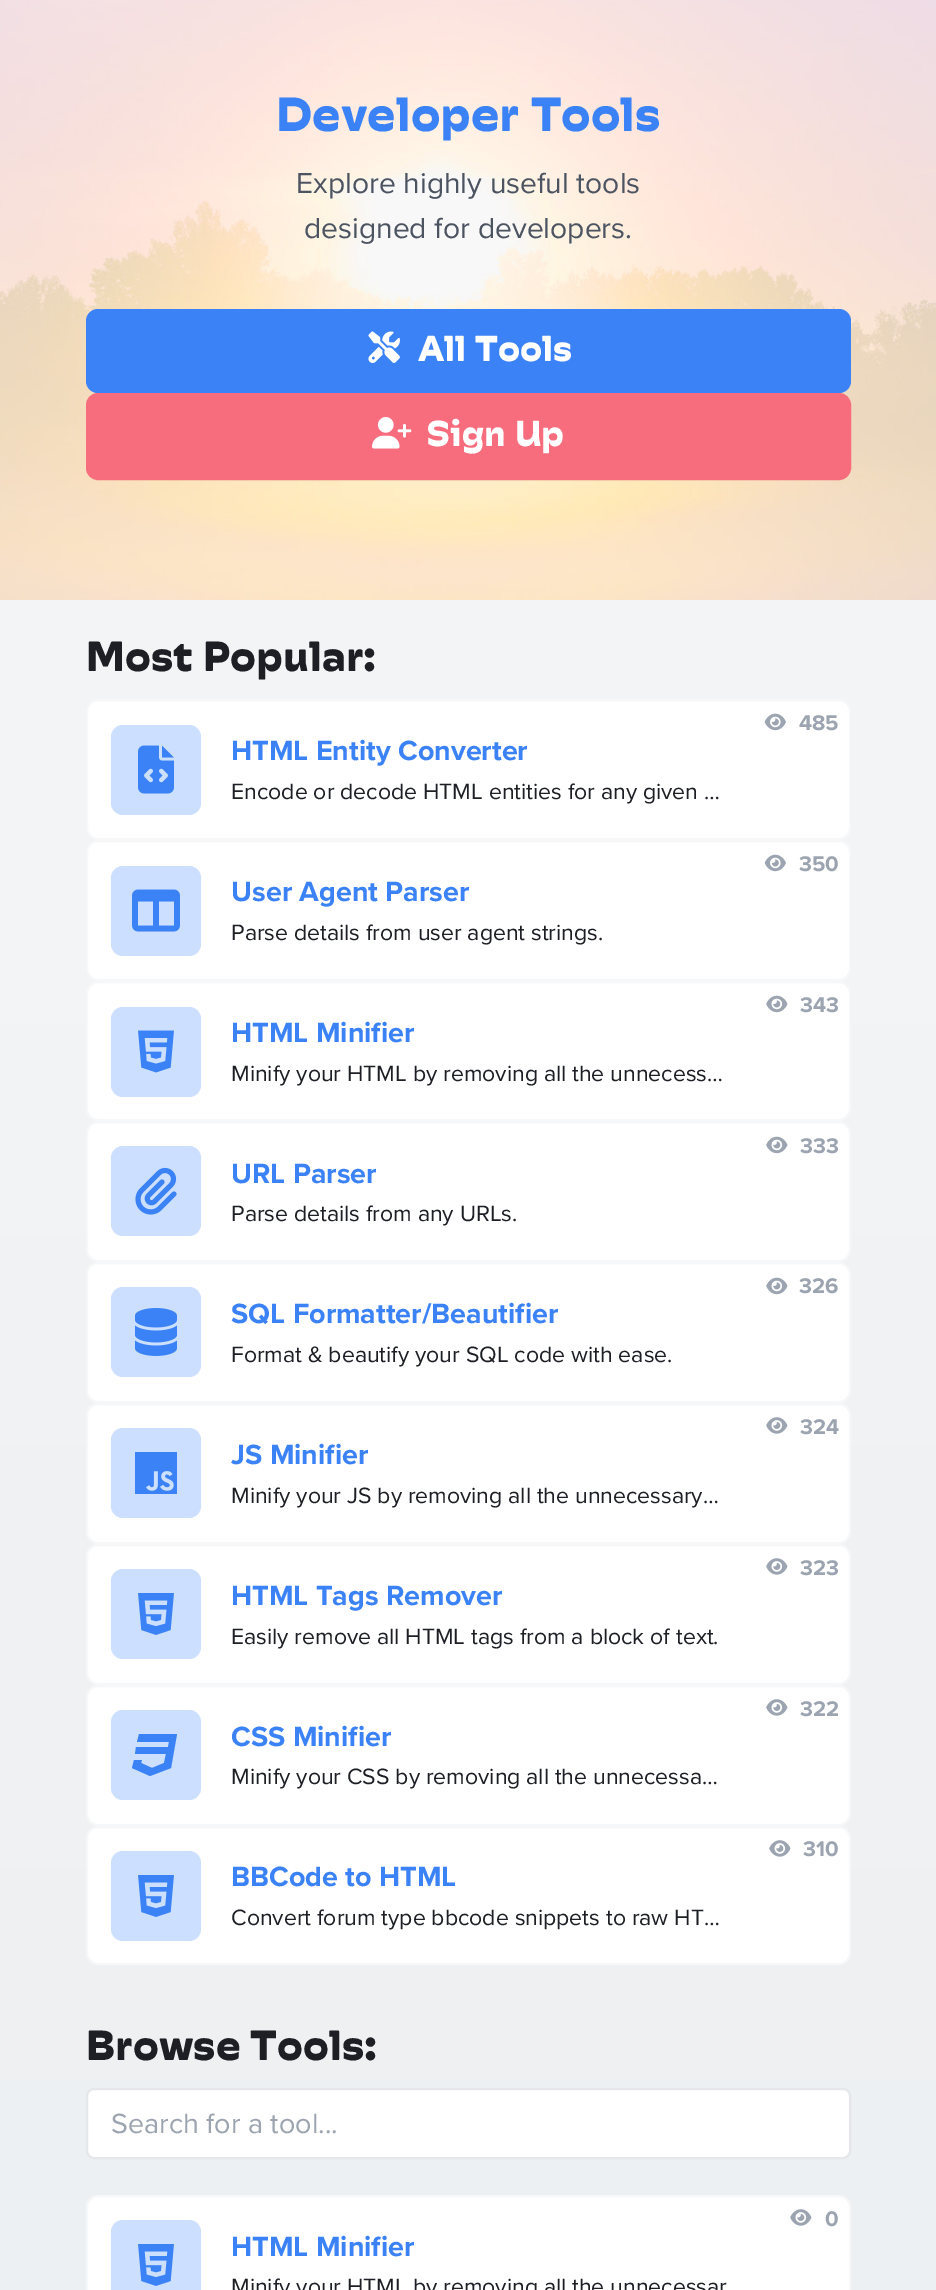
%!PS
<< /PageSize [936 2290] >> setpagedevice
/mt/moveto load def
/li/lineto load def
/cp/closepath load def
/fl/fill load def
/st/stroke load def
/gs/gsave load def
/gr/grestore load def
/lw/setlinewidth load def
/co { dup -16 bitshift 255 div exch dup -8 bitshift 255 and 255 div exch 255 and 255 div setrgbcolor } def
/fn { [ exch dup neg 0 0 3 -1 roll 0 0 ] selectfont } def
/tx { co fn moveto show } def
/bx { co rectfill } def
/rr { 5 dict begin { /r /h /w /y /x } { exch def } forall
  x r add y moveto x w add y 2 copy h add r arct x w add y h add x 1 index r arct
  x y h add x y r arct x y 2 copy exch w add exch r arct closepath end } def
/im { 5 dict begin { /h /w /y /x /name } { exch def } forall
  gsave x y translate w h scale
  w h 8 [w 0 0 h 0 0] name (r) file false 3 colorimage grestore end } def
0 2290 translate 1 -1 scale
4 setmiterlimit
0 0 936 2290 16#FFFFFF bx
gs 0 600 mt 936 600 li 936 2290 li 0 2290 li cp clip newpath
<< /ShadingType 2 /ColorSpace /DeviceRGB /Coords [468 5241 468 -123] /Extend [true true] /Function << /FunctionType 2 /Domain [0 1] /C0 [.89 .906 .922] /C1 [.965 .969 .973] /N 1 >> >> shfill gr
(media/1.raw) 0 0 936 600 im
16#3B82F6 co
86 309 765 84 12 rr fl
(media/2.raw) 368 331 32 32 im
16#F76D7E co
87 394 763 85 11 rr gs fl gr
2 lw
st
(media/3.raw) 372 417 40 32 im
16#FFFFFF co
87 700 763 139 11 rr gs fl gr
16#F6F7F8 co
st
(media/4.raw) 764 713 22 18 im
16#CCDFFF co
111 725 90 90 12 rr fl
(media/5.raw) 138 745 36 49 im
16#FFFFFF co
87 841 763 139 11 rr gs fl gr
16#F6F7F8 co
st
(media/4.raw) 764 854 22 18 im
16#CCDFFF co
111 866 90 90 12 rr fl
(media/6.raw) 132 889 48 43 im
16#FFFFFF co
87 982 763 138 11 rr gs fl gr
16#F6F7F8 co
st
(media/7.raw) 766 995 22 18 im
16#CCDFFF co
111 1007 90 90 12 rr fl
(media/8.raw) 138 1030 36 43 im
16#FFFFFF co
87 1122 763 139 11 rr gs fl gr
16#F6F7F8 co
st
16#CCDFFF co
111 1146 90 90 12 rr fl
(media/9.raw) 135 1167 42 48 im
(media/7.raw) 766 1136 22 18 im
16#FFFFFF co
87 1263 763 139 11 rr gs fl gr
16#F6F7F8 co
st
16#CCDFFF co
111 1287 90 90 12 rr fl
(media/10.raw) 135 1308 42 48 im
(media/7.raw) 766 1277 22 18 im
16#FFFFFF co
87 1404 763 139 11 rr gs fl gr
16#F6F7F8 co
st
16#CCDFFF co
111 1428 90 90 12 rr fl
(media/11.raw) 135 1452 42 42 im
(media/12.raw) 766 1417 22 17 im
16#FFFFFF co
87 1545 763 139 11 rr gs fl gr
16#F6F7F8 co
st
16#CCDFFF co
111 1569 90 90 12 rr fl
(media/13.raw) 138 1593 36 42 im
(media/12.raw) 766 1558 22 17 im
16#FFFFFF co
87 1686 763 139 11 rr gs fl gr
16#F6F7F8 co
st
16#CCDFFF co
111 1710 90 90 12 rr fl
16#3B82F6 co
177 1734 mt 171 1768 li 150 1776 li 132 1768 li 134 1760 li 142 1760 li 141 1763 li 152 1768 li 164 1763 li 166 1754 li 135 1754 li 136 1747 li 168 1747 li 169 1742 li 137 1742 li 139 1734 li cp fl
(media/12.raw) 766 1699 22 17 im
16#FFFFFF co
87 1827 763 137 11 rr gs fl gr
16#F6F7F8 co
st
(media/12.raw) 769 1840 22 17 im
16#CCDFFF co
111 1851 90 90 12 rr fl
(media/13.raw) 138 1875 36 42 im
16#FFFFFF co
87 2089 763 69 7 rr gs fl gr
16#E5E7EB co
st
16#FFFFFF co
87 2196 763 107 11 rr gs fl gr
16#F6F7F8 co
st
16#CCDFFF co
111 2220 90 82 12 rr fl
(media/13.raw) 138 2244 36 42 im
(media/12.raw) 790 2209 22 17 im
(Developer Tools) 276 131 /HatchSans-Bold 48 16#3B82F6 tx
(Explore highly useful tools) 296 193 /ProximaNova-Regular 30 16#4C5361 tx
(designed for developers.) 304 238 /ProximaNova-Regular 30 16#4C5361 tx
(All Tools) 418 361 /HatchSans-Bold 36 16#FFFFFF tx
(Sign Up) 426 446 /HatchSans-Bold 36 16#FFFFFF tx
(Most Popular:) 86 671 /HatchSans-Bold 42 16#1D1F25 tx
(485) 799 730 /ProximaNova-Bold 22 16#9BA4B0 tx
(HTML Entity Converter) 231 760 /ProximaNova-Bold 28.75 16#3B82F6 tx
(Encode or decode HTML entities for any given …) 231 799 /ProximaNova-Regular 23 16#1D1F25 tx
(350) 799 871 /ProximaNova-Bold 22 16#9BA4B0 tx
(User Agent Parser) 231 901 /ProximaNova-Bold 28.75 16#3B82F6 tx
(Parse details from user agent strings.) 231 940 /ProximaNova-Regular 23 16#1D1F25 tx
(343) 800 1012 /ProximaNova-Bold 22 16#9BA4B0 tx
(HTML Minifier) 231 1042 /ProximaNova-Bold 28.75 16#3B82F6 tx
(Minify your HTML by removing all the unnecess…) 231 1081 /ProximaNova-Regular 23 16#1D1F25 tx
(URL Parser) 231 1183 /ProximaNova-Bold 28.75 16#3B82F6 tx
(Parse details from any URLs.) 231 1221 /ProximaNova-Regular 23 16#1D1F25 tx
(333) 800 1153 /ProximaNova-Bold 22 16#9BA4B0 tx
(SQL Formatter/Beautifier) 231 1323 /ProximaNova-Bold 28.75 16#3B82F6 tx
(Format & beautify your SQL code with ease.) 231 1362 /ProximaNova-Regular 23 16#1D1F25 tx
(326) 799 1293 /ProximaNova-Bold 22 16#9BA4B0 tx
(JS Minifier) 231 1464 /ProximaNova-Bold 28.75 16#3B82F6 tx
(Minify your JS by removing all the unnecessary…) 231 1503 /ProximaNova-Regular 23 16#1D1F25 tx
(324) 800 1434 /ProximaNova-Bold 22 16#9BA4B0 tx
(HTML Tags Remover) 231 1605 /ProximaNova-Bold 28.75 16#3B82F6 tx
(Easily remove all HTML tags from a block of text.) 231 1644 /ProximaNova-Regular 23 16#1D1F25 tx
(323) 800 1575 /ProximaNova-Bold 22 16#9BA4B0 tx
(CSS Minifier) 231 1746 /ProximaNova-Bold 28.75 16#3B82F6 tx
(Minify your CSS by removing all the unnecessa…) 231 1784 /ProximaNova-Regular 23 16#1D1F25 tx
(322) 800 1716 /ProximaNova-Bold 22 16#9BA4B0 tx
(310) 803 1856 /ProximaNova-Bold 22 16#9BA4B0 tx
(BBCode to HTML) 231 1886 /ProximaNova-Bold 28.75 16#3B82F6 tx
(Convert forum type bbcode snippets to raw HT…) 231 1925 /ProximaNova-Regular 23 16#1D1F25 tx
(Browse Tools:) 86 2060 /HatchSans-Bold 42 16#1D1F25 tx
(Search for a tool...) 111 2133 /ProximaNova-Regular 28.75 16#9BA4B0 tx
(HTML Minifier) 231 2256 /ProximaNova-Bold 28.75 16#3B82F6 tx
(Minify your HTML by removing all the unnecessar) 231 2294 /ProximaNova-Regular 23 16#1D1F25 tx
(0) 825 2226 /ProximaNova-Bold 22 16#9BA4B0 tx
showpage
